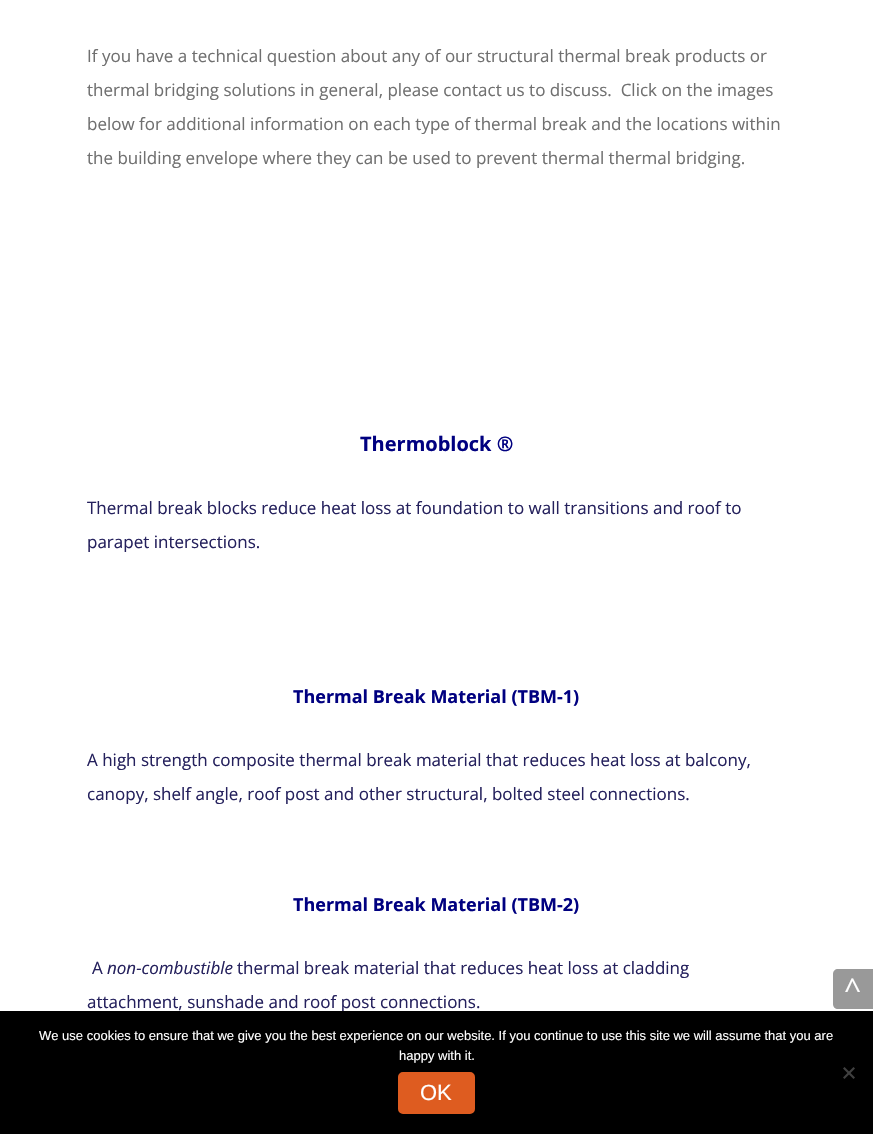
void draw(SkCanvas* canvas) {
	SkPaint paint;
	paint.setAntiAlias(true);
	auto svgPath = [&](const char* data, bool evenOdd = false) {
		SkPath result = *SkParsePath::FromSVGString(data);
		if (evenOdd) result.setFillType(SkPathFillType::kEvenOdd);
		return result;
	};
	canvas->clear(0xffffffff);
	SkFont f1(fontMgr->matchFamilyStyle("Open Sans", SkFontStyle::Normal()), 17);
	f1.setSubpixel(true);
	paint.setColor(0xff707070);
	canvas->drawString("If you have a technical question about any of our structural thermal break products or", 87, 62, f1, paint);
	canvas->drawString("thermal bridging solutions in general, please contact us to discuss.  Click on the images", 87, 96, f1, paint);
	canvas->drawString("below for additional information on each type of thermal break and the locations within", 87, 130, f1, paint);
	canvas->drawString("the building envelope where they can be used to prevent thermal thermal bridging.", 87, 164, f1, paint);
	SkFont f2(fontMgr->matchFamilyStyle("Open Sans", SkFontStyle::Bold()), 20);
	f2.setSubpixel(true);
	paint.setColor(0xff000080);
	canvas->drawString("Thermoblock ®", 360, 451, f2, paint);
	paint.setColor(0xff25215d);
	canvas->drawString("Thermal break blocks reduce heat loss at foundation to wall transitions and roof to", 87, 514, f1, paint);
	canvas->drawString("parapet intersections.", 87, 548, f1, paint);
	SkFont f3(fontMgr->matchFamilyStyle("Open Sans", SkFontStyle::Bold()), 18);
	f3.setSubpixel(true);
	paint.setColor(0xff000080);
	canvas->drawString("Thermal Break Material (TBM-1)", 293, 703, f3, paint);
	paint.setColor(0xff25215d);
	canvas->drawString("A high strength composite thermal break material that reduces heat loss at balcony,", 87, 766, f1, paint);
	canvas->drawString("canopy, shelf angle, roof post and other structural, bolted steel connections.", 87, 800, f1, paint);
	paint.setColor(0xff000080);
	canvas->drawString("Thermal Break Material (TBM-2)", 293, 911, f3, paint);
	paint.setColor(0xff25215d);
	canvas->drawString("A", 92, 974, f1, paint);
	SkFont f4(fontMgr->matchFamilyStyle("Open Sans", SkFontStyle::Italic()), 17);
	f4.setSubpixel(true);
	canvas->drawString("non-combustible", 107, 974, f4, paint);
	canvas->drawString("thermal break material that reduces heat loss at cladding", 237, 974, f1, paint);
	canvas->drawString("attachment, sunshade and roof post connections.", 87, 1008, f1, paint);
	paint.setColor(0xff999999);
	canvas->drawPath(svgPath("M838 969H873V1009H838C835 1009 833 1007 833 1004V974C833 971 835 969 838 969Z"), paint);
	SkFont f5(fontMgr->matchFamilyStyle("Open Sans", SkFontStyle::Normal()), 30);
	f5.setSubpixel(true);
	paint.setColor(0xffffffff);
	canvas->drawString("^", 844, 1000, f5, paint);
	paint.setColor(0xff000000);
	canvas->drawRect(SkRect::MakeXYWH(0, 1011, 873, 123), paint);
	SkFont f6(fontMgr->matchFamilyStyle("Liberation Sans", SkFontStyle::Normal()), 13);
	f6.setSubpixel(true);
	paint.setColor(0xffffffff);
	canvas->drawString("We use cookies to ensure that we give you the best experience on our website. If you continue to use this site we will assume that you are", 39, 1040, f6, paint);
	canvas->drawString("happy with it.", 399, 1060, f6, paint);
	paint.setColor(0xff404040);
	canvas->drawPath(svgPath("M853.5 1067L855 1068.5L844.5 1079L843 1077.5Z"), paint);
	canvas->drawPath(svgPath("M843 1068.5L844.5 1067L855 1077.5L853.5 1079Z"), paint);
	paint.setColor(0xffde5c20);
	canvas->drawRoundRect(SkRect::MakeXYWH(399, 1073, 75, 40), 4, 4, paint);
	paint.setStroke(true);
	paint.setStrokeWidth(2);
	canvas->drawRoundRect(SkRect::MakeXYWH(399, 1073, 75, 40), 4, 4, paint);
	SkFont f7(fontMgr->matchFamilyStyle("Liberation Sans", SkFontStyle::Normal()), 22);
	f7.setSubpixel(true);
	paint.setStroke(false);
	paint.setColor(0xffffffff);
	canvas->drawString("OK", 420, 1100, f7, paint);
}
